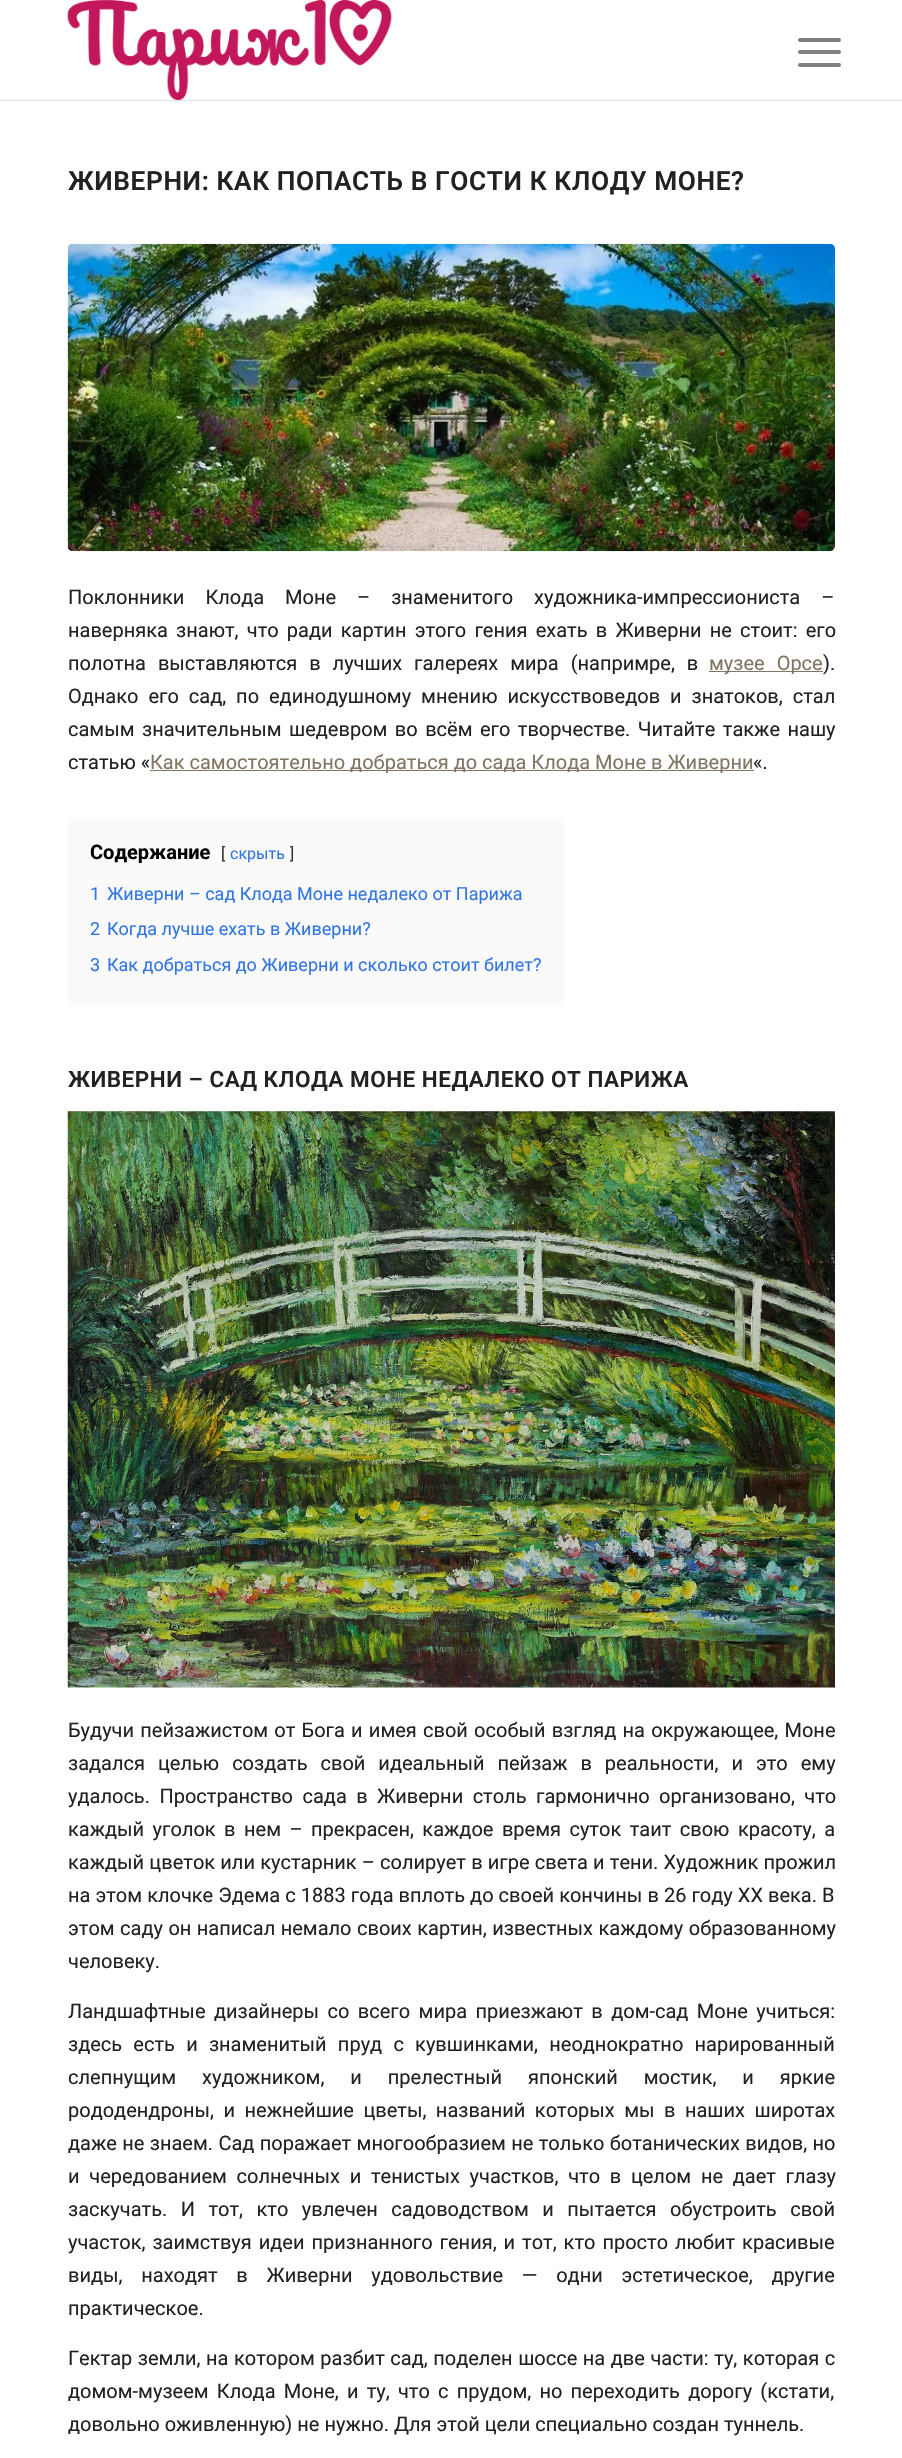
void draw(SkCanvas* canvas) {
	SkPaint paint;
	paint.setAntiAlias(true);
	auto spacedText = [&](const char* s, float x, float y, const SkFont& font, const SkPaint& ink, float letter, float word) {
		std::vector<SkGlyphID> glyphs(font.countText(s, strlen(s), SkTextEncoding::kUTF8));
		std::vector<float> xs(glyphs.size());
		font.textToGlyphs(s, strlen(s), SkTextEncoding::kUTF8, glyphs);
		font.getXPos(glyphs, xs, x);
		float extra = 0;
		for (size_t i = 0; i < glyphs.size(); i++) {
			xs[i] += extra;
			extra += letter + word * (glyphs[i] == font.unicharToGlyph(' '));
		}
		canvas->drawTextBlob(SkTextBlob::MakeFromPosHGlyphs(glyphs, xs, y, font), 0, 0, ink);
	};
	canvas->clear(0xffffffff);
	paint.setColor(0xffe1e1e1);
	canvas->drawRect(SkRect::MakeXYWH(0, 100, 902, 1), paint);
	canvas->drawImageRect(SkImages::DeferredFromEncodedData(SkData::MakeFromFileName("img1.png")), SkRect::MakeXYWH(67, 0, 325, 100), SkSamplingOptions());
	paint.setColor(0xff808080);
	canvas->drawRoundRect(SkRect::MakeXYWH(798, 50, 43, 4), 2, 2, paint);
	canvas->drawRoundRect(SkRect::MakeXYWH(798, 38, 43, 4), 2, 2, paint);
	canvas->drawRoundRect(SkRect::MakeXYWH(798, 63, 43, 4), 2, 2, paint);
	SkFont f1(fontMgr->matchFamilyStyle("Roboto", SkFontStyle(600, SkFontStyle::kNormal_Width, SkFontStyle::kUpright_Slant)), 26.25);
	f1.setSubpixel(true);
	paint.setColor(0xff222222);
	spacedText("ЖИВЕРНИ: КАК ПОПАСТЬ В ГОСТИ К КЛОДУ МОНЕ?", 68, 190, f1, paint, 0.6, 0);
	canvas->drawImageRect(SkImages::DeferredFromEncodedData(SkData::MakeFromFileName("img2.png")), SkRect::MakeXYWH(67, 243, 768, 309), SkSamplingOptions());
	SkFont f2(fontMgr->matchFamilyStyle("Roboto", SkFontStyle::Normal()), 20);
	f2.setSubpixel(true);
	spacedText("Поклонники Клода Моне – знаменитого художника-импрессиониста –", 68, 604, f2, paint, 0, 16);
	spacedText("наверняка знают, что ради картин этого гения ехать в Живерни не стоит: его", 68, 637, f2, paint, 0, 3.25);
	spacedText("полотна выставляются в лучших галереях мира (напримре, в", 68, 670, f2, paint, 0, 7);
	paint.setColor(0xff817563);
	canvas->drawRect(SkRect::MakeXYWH(709, 671, 114, 1), paint);
	spacedText("музее Орсе", 709, 670, f2, paint, 0, 7);
	paint.setColor(0xff222222);
	canvas->drawString(").", 823, 670, f2, paint);
	spacedText("Однако его сад, по единодушному мнению искусствоведов и знатоков, стал", 68, 703, f2, paint, 0, 5);
	spacedText("самым значительным шедевром во всём его творчестве. Читайте также нашу", 68, 736, f2, paint, 0, 2.5);
	canvas->drawString("статью «", 68, 769, f2, paint);
	paint.setColor(0xff817563);
	canvas->drawRect(SkRect::MakeXYWH(150, 770, 604, 1), paint);
	canvas->drawString("Как самостоятельно добраться до сада Клода Моне в Живерни", 150, 769, f2, paint);
	paint.setColor(0xff222222);
	canvas->drawString("«.", 753, 769, f2, paint);
	paint.setColor(0xfffafafa);
	canvas->drawRect(SkRect::MakeXYWH(68, 819, 496, 186), paint);
	SkFont f3(fontMgr->matchFamilyStyle("Roboto", SkFontStyle::Bold()), 20);
	f3.setSubpixel(true);
	paint.setColor(0xff000000);
	canvas->drawString("Содержание", 90, 859, f3, paint);
	SkFont f4(fontMgr->matchFamilyStyle("Roboto", SkFontStyle::Normal()), 16);
	f4.setSubpixel(true);
	paint.setColor(0xff333333);
	canvas->drawString("[", 221, 859, f4, paint);
	paint.setColor(0xff3175e4);
	canvas->drawString("скрыть", 230, 859, f4, paint);
	paint.setColor(0xff333333);
	canvas->drawString("]", 290, 859, f4, paint);
	SkFont f5(fontMgr->matchFamilyStyle("Roboto", SkFontStyle::Normal()), 18);
	f5.setSubpixel(true);
	paint.setColor(0xff3175e4);
	canvas->drawString("1", 90, 900, f5, paint);
	canvas->drawString("Живерни – сад Клода Моне недалеко от Парижа", 107, 900, f5, paint);
	canvas->drawString("2", 90, 935, f5, paint);
	canvas->drawString("Когда лучше ехать в Живерни?", 107, 935, f5, paint);
	canvas->drawString("3", 90, 971, f5, paint);
	canvas->drawString("Как добраться до Живерни и сколько стоит билет?", 107, 971, f5, paint);
	SkFont f6(fontMgr->matchFamilyStyle("Roboto", SkFontStyle(600, SkFontStyle::kNormal_Width, SkFontStyle::kUpright_Slant)), 22.5);
	f6.setSubpixel(true);
	paint.setColor(0xff222222);
	spacedText("ЖИВЕРНИ – САД КЛОДА МОНЕ НЕДАЛЕКО ОТ ПАРИЖА", 68, 1087, f6, paint, 0.5, 0);
	canvas->drawImageRect(SkImages::DeferredFromEncodedData(SkData::MakeFromFileName("img3.png")), SkRect::MakeXYWH(67, 1111, 768, 577), SkSamplingOptions());
	spacedText("Будучи пейзажистом от Бога и имея свой особый взгляд на окружающее, Моне", 68, 1737, f2, paint, 0, 1.25);
	spacedText("задался целью создать свой идеальный пейзаж в реальности, и это ему", 68, 1770, f2, paint, 0, 8);
	spacedText("удалось. Пространство сада в Живерни столь гармонично организовано, что", 68, 1803, f2, paint, 0, 4.5);
	spacedText("каждый уголок в нем – прекрасен, каждое время суток таит свою красоту, а", 68, 1836, f2, paint, 0, 3.5);
	spacedText("каждый цветок или кустарник – солирует в игре света и тени. Художник прожил", 68, 1869, f2, paint, 0, 0.25);
	spacedText("на этом клочке Эдема с 1883 года вплоть до своей кончины в 26 году ХХ века. В", 68, 1902, f2, paint, 0, 0.1);
	spacedText("этом саду он написал немало своих картин, известных каждому образованному", 68, 1935, f2, paint, 0, 0.5);
	canvas->drawString("человеку.", 68, 1968, f2, paint);
	spacedText("Ландшафтные дизайнеры со всего мира приезжают в дом-сад Моне учиться:", 68, 2018, f2, paint, 0, 3.5);
	spacedText("здесь есть и знаменитый пруд с кувшинками, неоднократно нарированный", 68, 2051, f2, paint, 0, 6.25);
	spacedText("слепнущим художником, и прелестный японский мостик, и яркие", 68, 2084, f2, paint, 0, 21);
	spacedText("рододендроны, и нежнейшие цветы, названий которых мы в наших широтах", 68, 2117, f2, paint, 0, 4.5);
	spacedText("даже не знаем. Сад поражает многообразием не только ботанических видов, но", 68, 2150, f2, paint, 0, 0.4);
	spacedText("и чередованием солнечных и тенистых участков, что в целом не дает глазу", 68, 2183, f2, paint, 0, 4.75);
	spacedText("заскучать. И тот, кто увлечен садоводством и пытается обустроить свой", 68, 2216, f2, paint, 0, 8.5);
	spacedText("участок, заимствуя идеи признанного гения, и тот, кто просто любит красивые", 68, 2249, f2, paint, 0, 2);
	spacedText("виды, находят в Живерни удовольствие — одни эстетическое, другие", 68, 2282, f2, paint, 0, 13.75);
	canvas->drawString("практическое.", 68, 2315, f2, paint);
	spacedText("Гектар земли, на котором разбит сад, поделен шоссе на две части: ту, которая с", 68, 2365, f2, paint, 0, 0.6);
	spacedText("домом-музеем Клода Моне, и ту, что с прудом, но переходить дорогу (кстати,", 68, 2398, f2, paint, 0, 3.25);
	canvas->drawString("довольно оживленную) не нужно. Для этой цели специально создан туннель.", 68, 2431, f2, paint);
}
